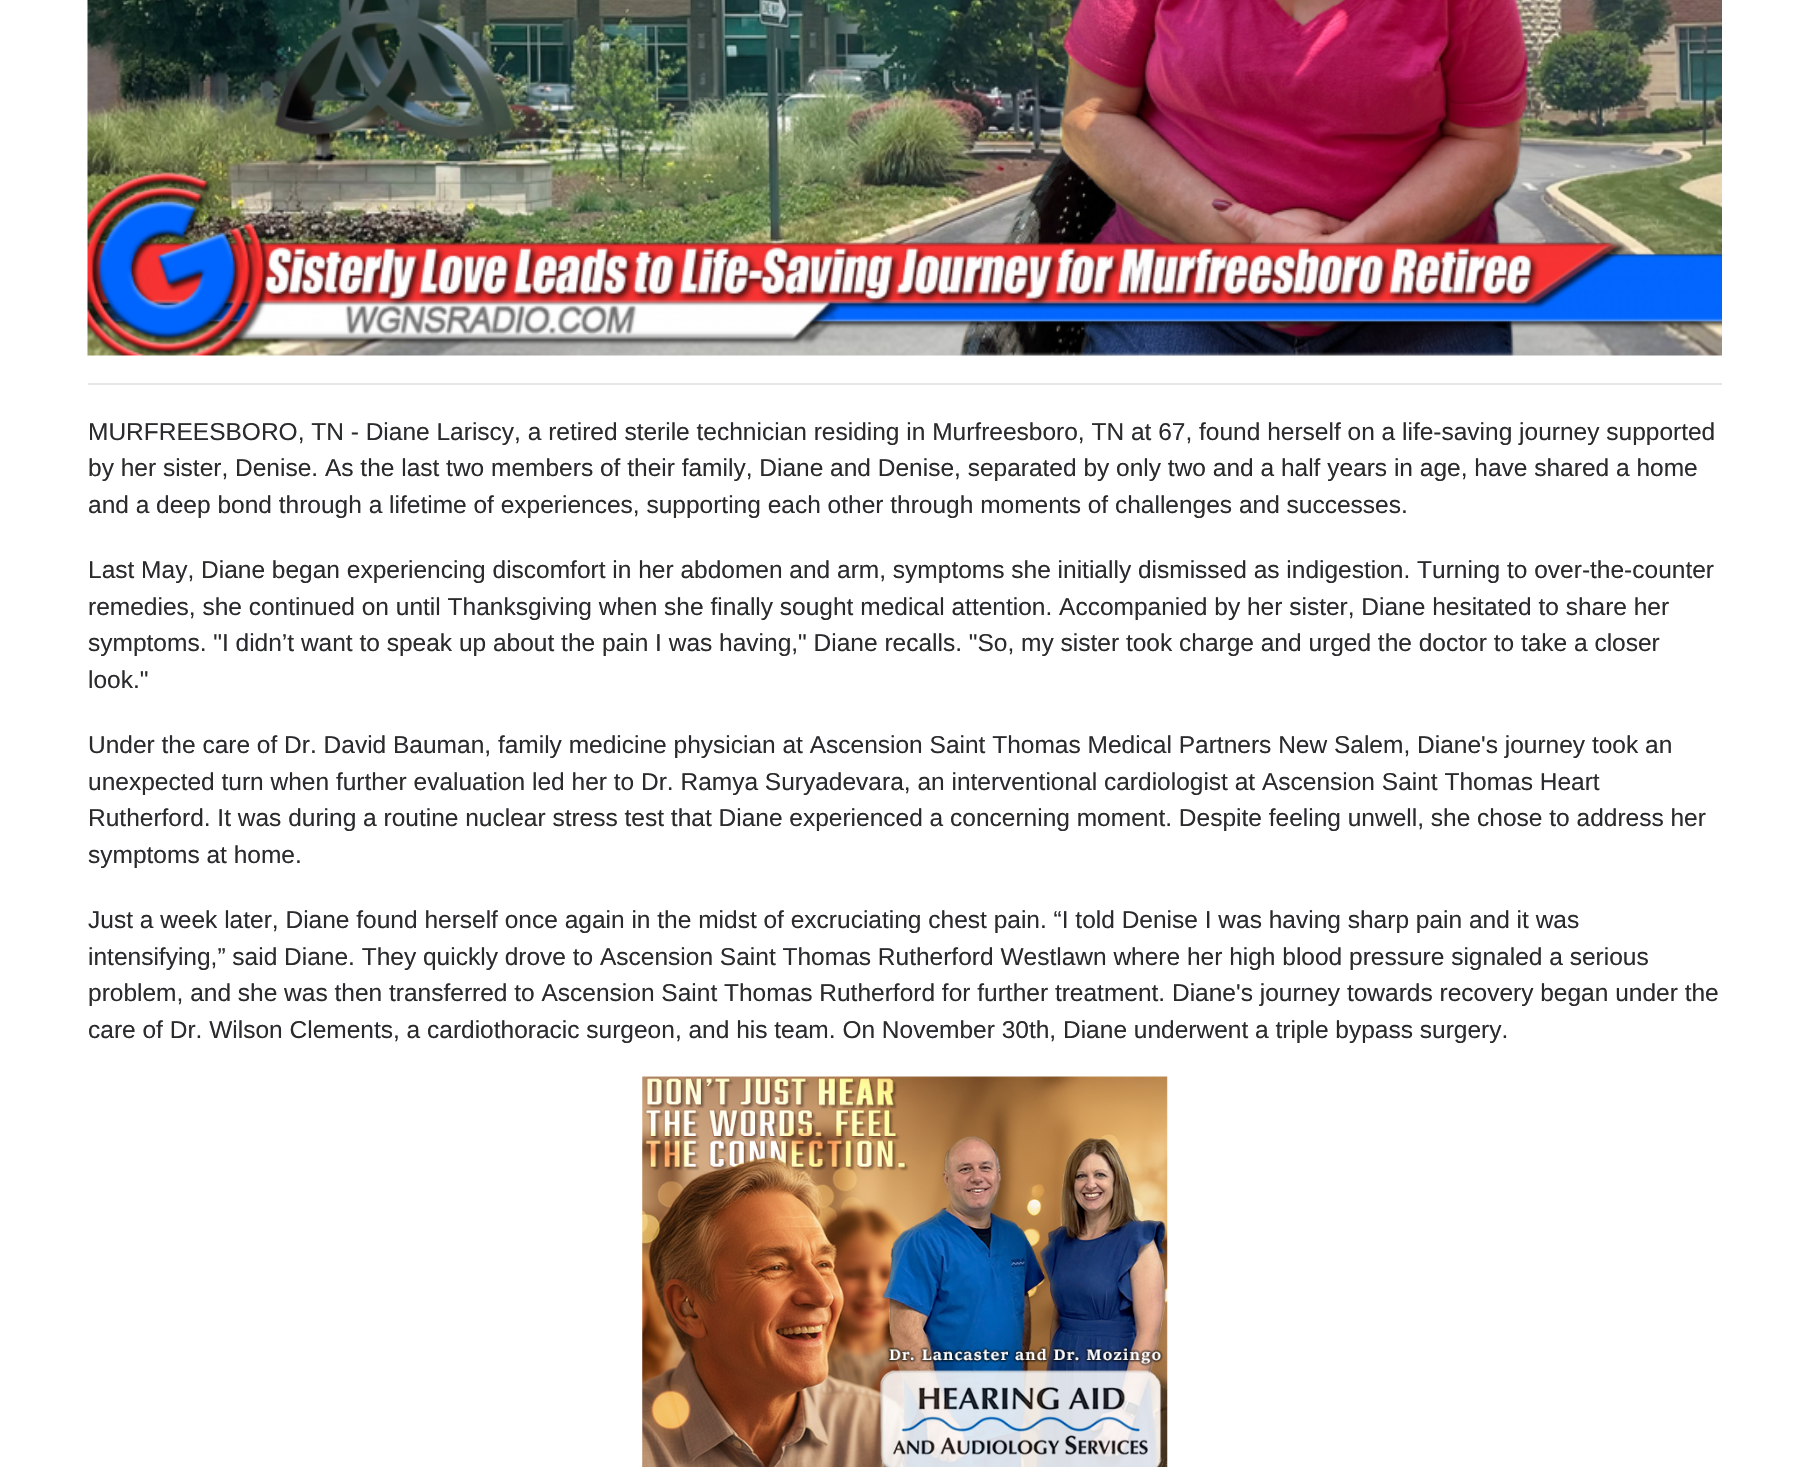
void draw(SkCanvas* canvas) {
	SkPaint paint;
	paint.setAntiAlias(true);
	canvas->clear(0xffffffff);
	canvas->drawImageRect(SkImages::DeferredFromEncodedData(SkData::MakeFromFileName("img1.png")), SkRect::MakeXYWH(87, 0, 1635, 356), SkSamplingOptions());
	paint.setColor(0xffe6e6e6);
	canvas->drawRect(SkRect::MakeXYWH(88, 383, 1634, 2), paint);
	SkFont f1(fontMgr->matchFamilyStyle("Liberation Sans", SkFontStyle::Normal()), 24.5);
	f1.setSubpixel(true);
	paint.setColor(0xff292b2c);
	canvas->drawString("MURFREESBORO, TN - Diane Lariscy, a retired sterile technician residing in Murfreesboro, TN at 67, found herself on a life-saving journey supported", 88, 440, f1, paint);
	canvas->drawString("by her sister, Denise. As the last two members of their family, Diane and Denise, separated by only two and a half years in age, have shared a home", 88, 476, f1, paint);
	canvas->drawString("and a deep bond through a lifetime of experiences, supporting each other through moments of challenges and successes.", 88, 513, f1, paint);
	canvas->drawString("Last May, Diane began experiencing discomfort in her abdomen and arm, symptoms she initially dismissed as indigestion. Turning to over-the-counter", 88, 578, f1, paint);
	canvas->drawString("remedies, she continued on until Thanksgiving when she finally sought medical attention. Accompanied by her sister, Diane hesitated to share her", 88, 615, f1, paint);
	canvas->drawString("symptoms. \"I didn’t want to speak up about the pain I was having,\" Diane recalls. \"So, my sister took charge and urged the doctor to take a closer", 88, 651, f1, paint);
	canvas->drawString("look.\"", 88, 688, f1, paint);
	canvas->drawString("Under the care of Dr. David Bauman, family medicine physician at Ascension Saint Thomas Medical Partners New Salem, Diane's journey took an", 88, 753, f1, paint);
	canvas->drawString("unexpected turn when further evaluation led her to Dr. Ramya Suryadevara, an interventional cardiologist at Ascension Saint Thomas Heart", 88, 790, f1, paint);
	canvas->drawString("Rutherford. It was during a routine nuclear stress test that Diane experienced a concerning moment. Despite feeling unwell, she chose to address her", 88, 826, f1, paint);
	canvas->drawString("symptoms at home.", 88, 863, f1, paint);
	canvas->drawString("Just a week later, Diane found herself once again in the midst of excruciating chest pain. “I told Denise I was having sharp pain and it was", 88, 928, f1, paint);
	canvas->drawString("intensifying,” said Diane. They quickly drove to Ascension Saint Thomas Rutherford Westlawn where her high blood pressure signaled a serious", 88, 965, f1, paint);
	canvas->drawString("problem, and she was then transferred to Ascension Saint Thomas Rutherford for further treatment. Diane's journey towards recovery began under the", 88, 1001, f1, paint);
	canvas->drawString("care of Dr. Wilson Clements, a cardiothoracic surgeon, and his team. On November 30th, Diane underwent a triple bypass surgery.", 88, 1038, f1, paint);
	canvas->drawImageRect(SkImages::DeferredFromEncodedData(SkData::MakeFromFileName("img2.png")), SkRect::MakeXYWH(642, 1076, 526, 391), SkSamplingOptions());
}
